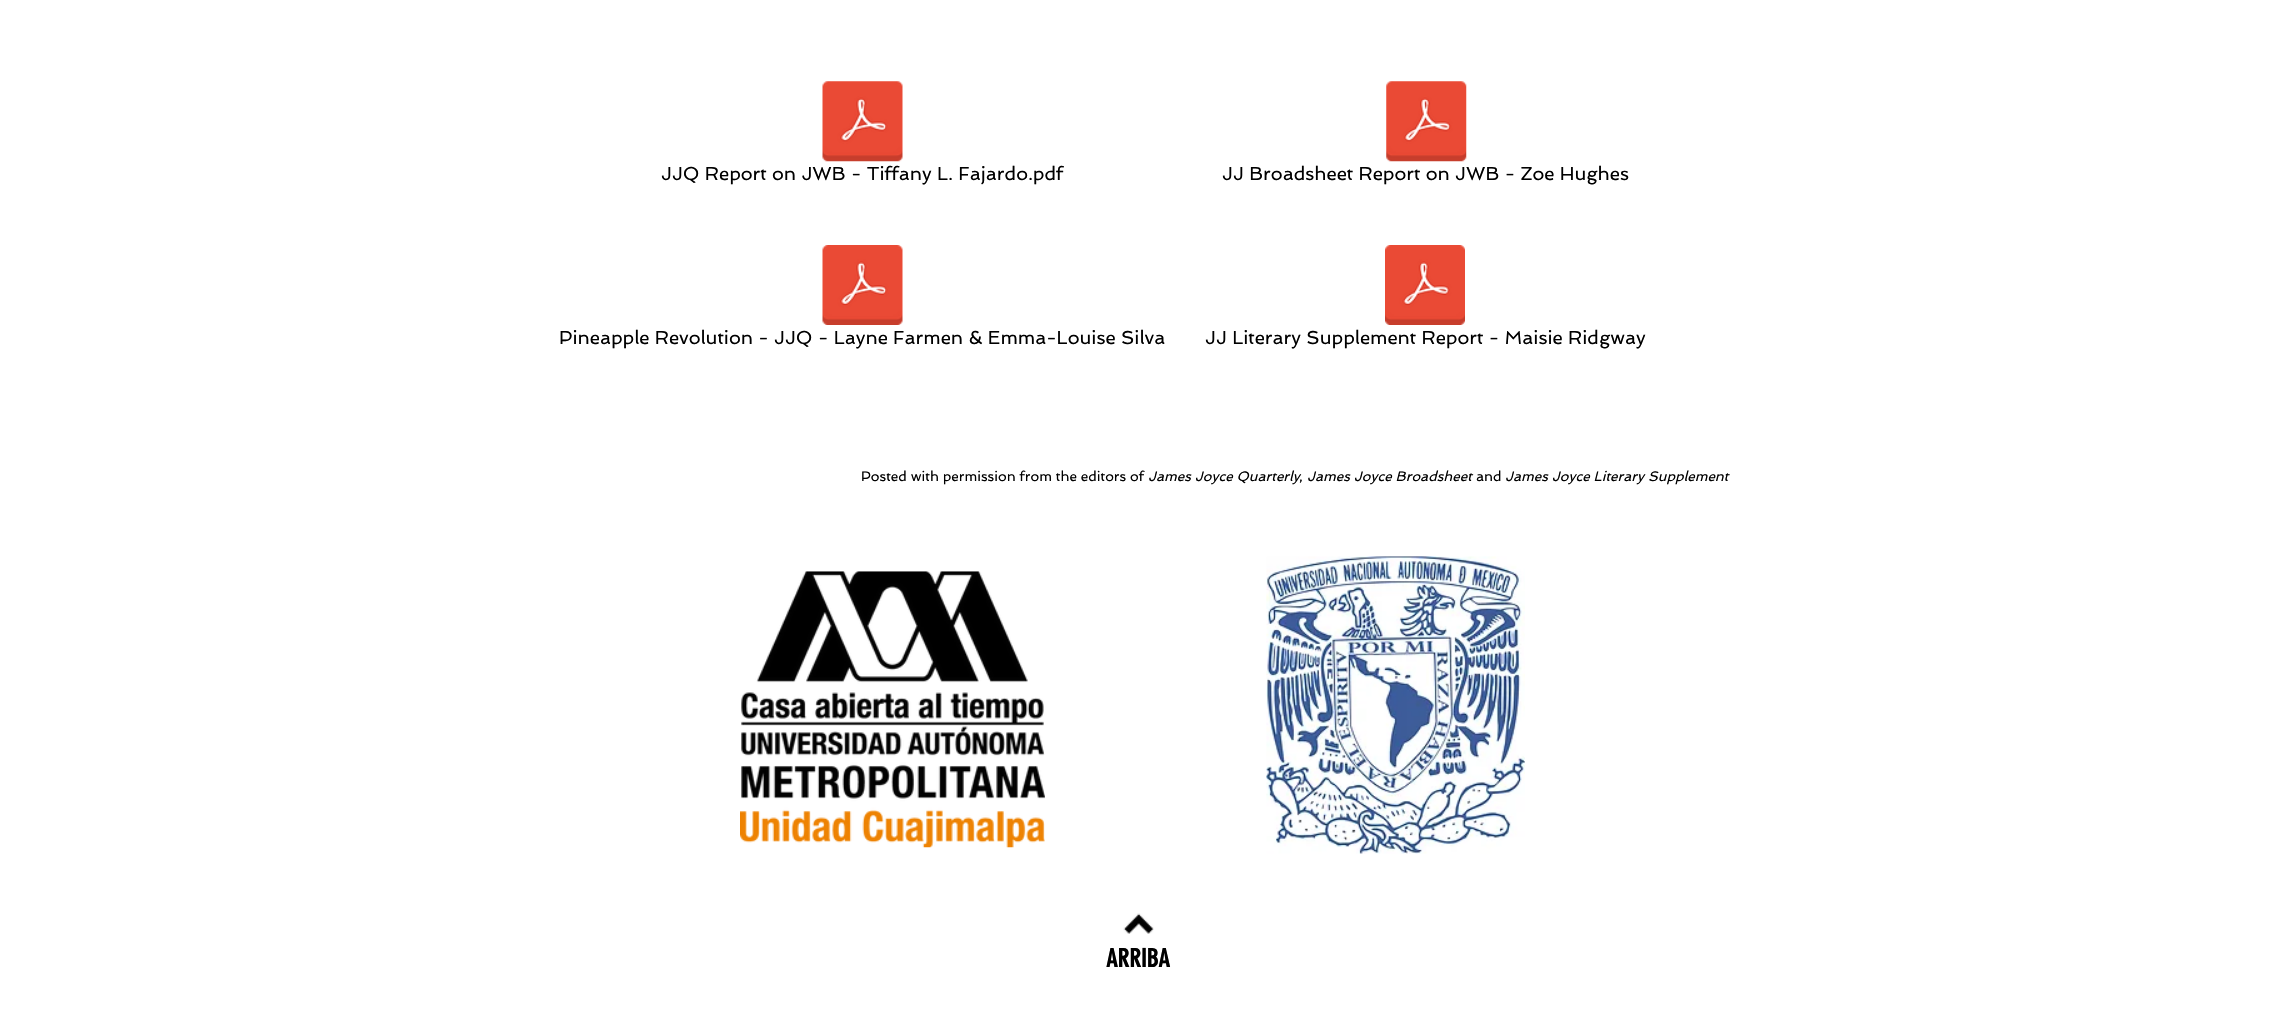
void draw(SkCanvas* canvas) {
	SkPaint paint;
	paint.setAntiAlias(true);
	canvas->clear(0xffffffff);
	canvas->drawImageRect(SkImages::DeferredFromEncodedData(SkData::MakeFromFileName("img1.png")), SkRect::MakeXYWH(822, 81, 81, 81), SkSamplingOptions());
	SkFont f1(fontMgr->matchFamilyStyle("Spinnaker", SkFontStyle::Normal()), 18.75);
	f1.setSubpixel(true);
	paint.setColor(0xff000000);
	canvas->drawString("JJQ Report on JWB - Tiffany L. Fajardo.pdf", 661, 180, f1, paint);
	canvas->drawImageRect(SkImages::DeferredFromEncodedData(SkData::MakeFromFileName("img2.png")), SkRect::MakeXYWH(1386, 81, 81, 81), SkSamplingOptions());
	canvas->drawString("JJ Broadsheet Report on JWB - Zoe Hughes", 1222, 180, f1, paint);
	canvas->drawImageRect(SkImages::DeferredFromEncodedData(SkData::MakeFromFileName("img3.png")), SkRect::MakeXYWH(822, 245, 81, 80), SkSamplingOptions());
	canvas->drawString("Pineapple Revolution - JJQ - Layne Farmen & Emma-Louise Silva", 559, 344, f1, paint);
	canvas->drawImageRect(SkImages::DeferredFromEncodedData(SkData::MakeFromFileName("img4.png")), SkRect::MakeXYWH(1385, 245, 80, 80), SkSamplingOptions());
	canvas->drawString("JJ Literary Supplement Report - Maisie Ridgway", 1205, 344, f1, paint);
	SkFont f2(fontMgr->matchFamilyStyle("Spinnaker", SkFontStyle::Normal()), 13.75);
	f2.setSubpixel(true);
	canvas->drawString("Posted with permission from the editors of", 861, 481, f2, paint);
	SkFont f3(fontMgr->matchFamilyStyle("Spinnaker", SkFontStyle::Italic()), 13.75);
	f3.setSubpixel(true);
	canvas->drawString("James Joyce Quarterly", 1148, 481, f3, paint);
	canvas->drawString(",", 1299, 481, f2, paint);
	canvas->drawString("James Joyce Broadsheet", 1307, 481, f3, paint);
	canvas->drawString("and", 1476, 481, f2, paint);
	canvas->drawString("James Joyce Literary Supplement", 1505, 481, f3, paint);
	canvas->drawImageRect(SkImages::DeferredFromEncodedData(SkData::MakeFromFileName("img5.png")), SkRect::MakeXYWH(740, 571, 305, 277), SkSamplingOptions());
	canvas->drawImageRect(SkImages::DeferredFromEncodedData(SkData::MakeFromFileName("img6.png")), SkRect::MakeXYWH(1266, 556, 259, 298), SkSamplingOptions());
	canvas->drawImageRect(SkImages::DeferredFromEncodedData(SkData::MakeFromFileName("img7.png")), SkRect::MakeXYWH(1123, 913, 31, 21), SkSamplingOptions());
	SkFont f4(fontMgr->matchFamilyStyle("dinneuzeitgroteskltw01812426", SkFontStyle::Bold()), 25);
	f4.setSubpixel(true);
	canvas->drawString("ARRIBA", 1106, 967, f4, paint);
}
